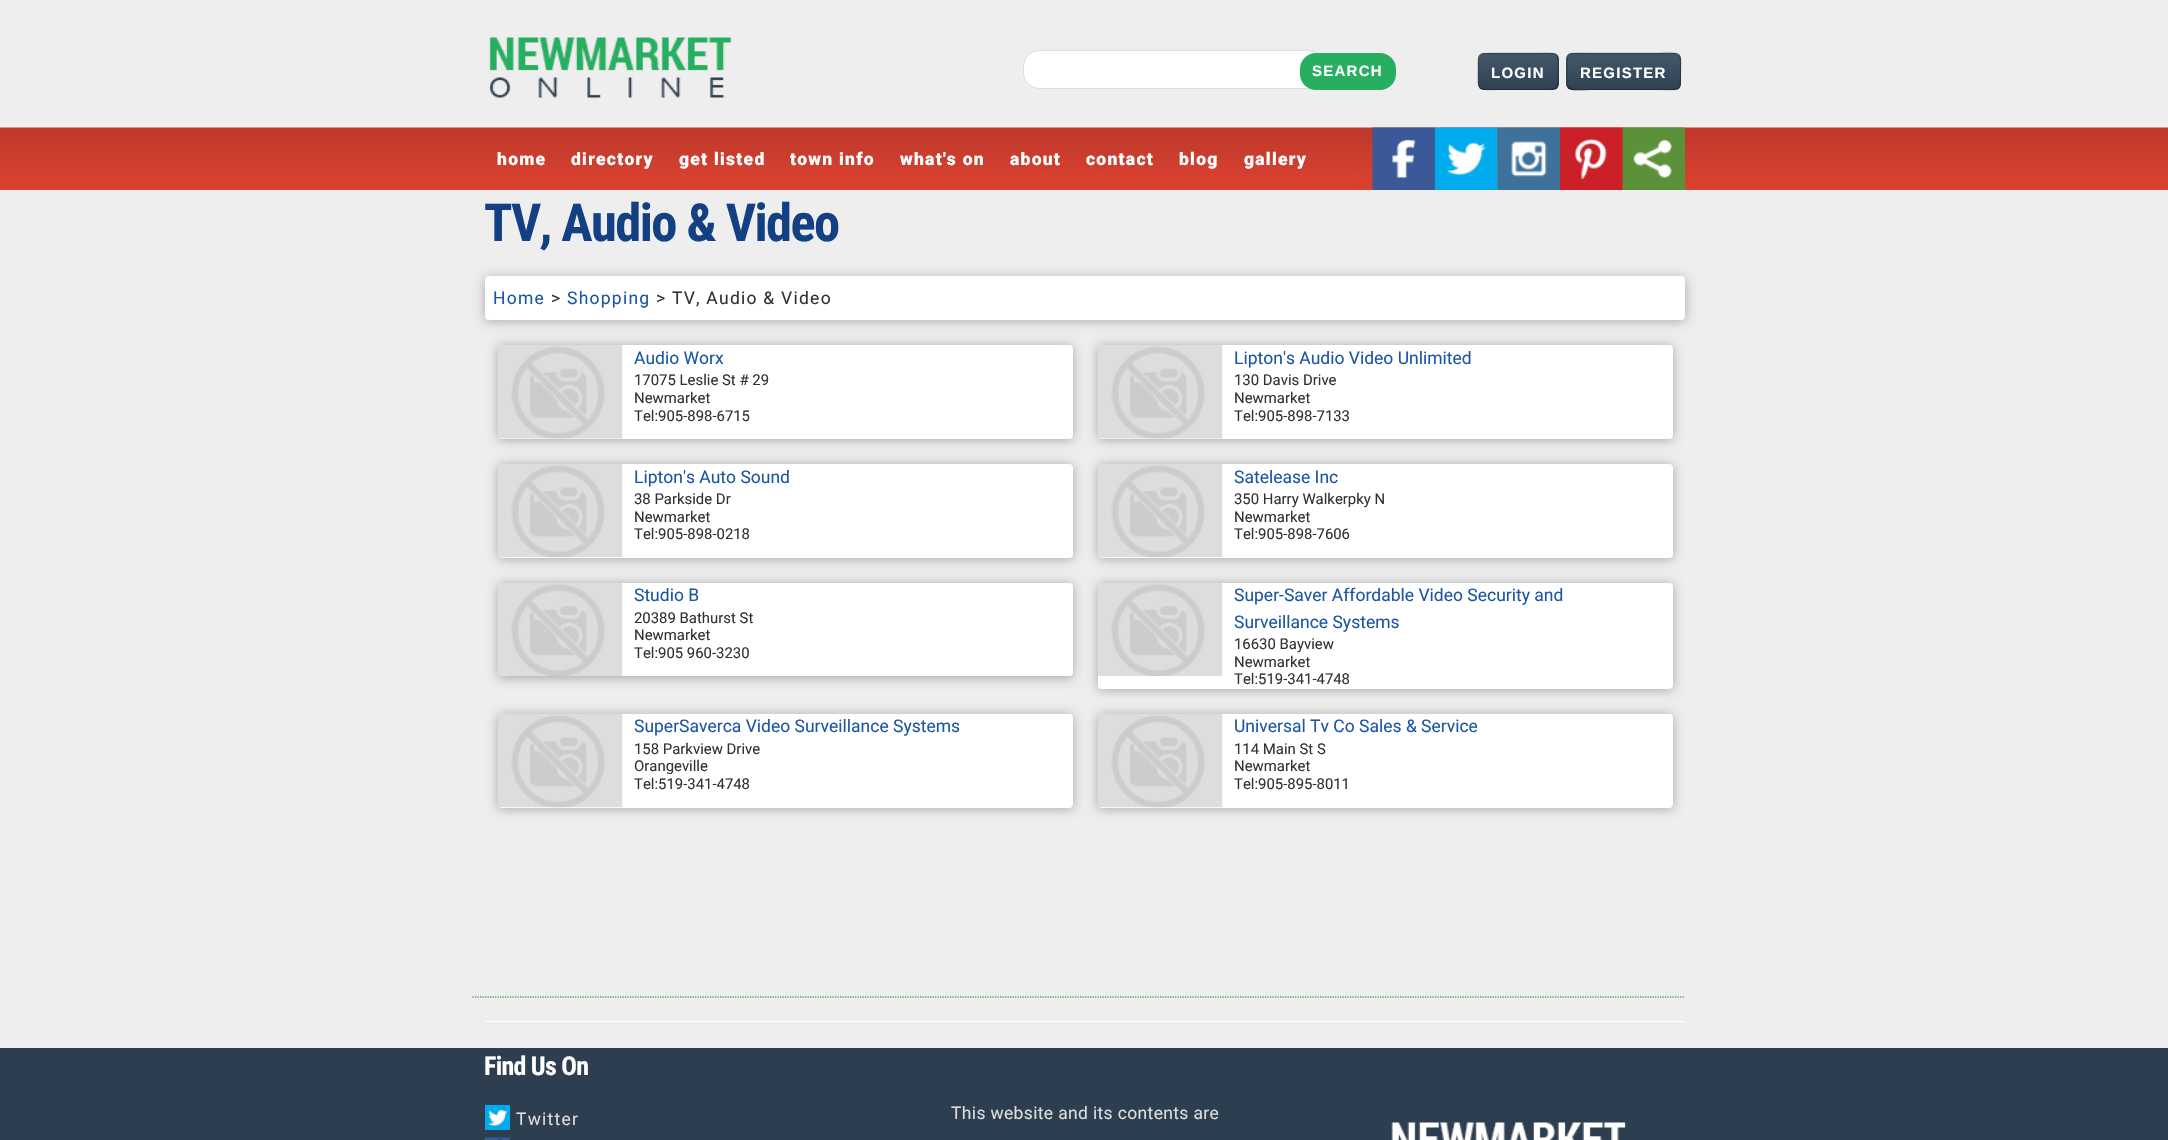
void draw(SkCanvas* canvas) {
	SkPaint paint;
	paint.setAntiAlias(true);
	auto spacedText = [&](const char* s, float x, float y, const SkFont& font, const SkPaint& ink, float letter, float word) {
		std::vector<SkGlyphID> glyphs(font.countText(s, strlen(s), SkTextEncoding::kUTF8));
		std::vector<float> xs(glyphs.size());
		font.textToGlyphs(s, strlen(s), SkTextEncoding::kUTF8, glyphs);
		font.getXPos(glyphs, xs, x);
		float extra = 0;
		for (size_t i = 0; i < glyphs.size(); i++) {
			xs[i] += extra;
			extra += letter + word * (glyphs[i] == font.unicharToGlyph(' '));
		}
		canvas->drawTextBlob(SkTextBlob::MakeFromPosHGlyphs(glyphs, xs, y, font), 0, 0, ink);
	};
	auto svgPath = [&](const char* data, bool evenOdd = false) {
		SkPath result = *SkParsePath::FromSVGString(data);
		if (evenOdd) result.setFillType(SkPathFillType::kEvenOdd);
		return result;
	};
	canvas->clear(0xffeeeeee);
	canvas->drawImageRect(SkImages::DeferredFromEncodedData(SkData::MakeFromFileName("img1.png")), SkRect::MakeXYWH(0, 127, 2168, 63), SkSamplingOptions());
	canvas->drawImageRect(SkImages::DeferredFromEncodedData(SkData::MakeFromFileName("img2.png")), SkRect::MakeXYWH(489, 37, 242, 61), SkSamplingOptions());
	paint.setColor(0xffffffff);
	canvas->drawRoundRect(SkRect::MakeXYWH(1023.5, 50.5, 301, 38), 15.5, 15.5, paint);
	paint.setStroke(true);
	paint.setStrokeWidth(1);
	paint.setColor(0xffdddddd);
	canvas->drawRoundRect(SkRect::MakeXYWH(1023.5, 50.5, 301, 38), 15.5, 15.5, paint);
	paint.setStroke(false);
	paint.setColor(0xff27ae60);
	canvas->drawRoundRect(SkRect::MakeXYWH(1300, 53, 96, 37), 16, 16, paint);
	SkFont f1(fontMgr->matchFamilyStyle("Liberation Sans", SkFontStyle::Bold()), 15);
	f1.setSubpixel(true);
	paint.setColor(0xffffffff);
	spacedText("SEARCH", 1312, 76, f1, paint, 1.25, 0);
	paint.setColor(0xff34495e);
	canvas->drawRoundRect(SkRect::MakeXYWH(1478, 53, 81, 37), 6, 6, paint);
	canvas->drawImageRect(SkImages::DeferredFromEncodedData(SkData::MakeFromFileName("img3.png")), SkRect::MakeXYWH(1477, 54, 82, 36), SkSamplingOptions());
	paint.setStroke(true);
	paint.setStrokeWidth(1.2);
	paint.setColor(0x4d000000);
	canvas->drawPath(svgPath("M1556.5 55C1559.5 58 1558 67.5 1558 71C1558 90.5 1560.5 89.5 1541 89.5H1495C1493 89.5 1483 91 1480 87.5"), paint);
	paint.setColor(0x33000000);
	canvas->drawPath(svgPath("M1480 87.5C1476.5 84.5 1478 75 1478 71C1478 52 1476 53 1495 53H1541C1543.5 53 1553 51.5 1556.5 55"), paint);
	paint.setStroke(false);
	paint.setColor(0xffffffff);
	spacedText("LOGIN", 1491, 78, f1, paint, 1.25, 0);
	paint.setColor(0xff34495e);
	canvas->drawRoundRect(SkRect::MakeXYWH(1566, 53, 115, 37), 6, 6, paint);
	canvas->drawImageRect(SkImages::DeferredFromEncodedData(SkData::MakeFromFileName("img4.png")), SkRect::MakeXYWH(1566, 54, 115, 36), SkSamplingOptions());
	paint.setStroke(true);
	paint.setColor(0x4d000000);
	canvas->drawPath(svgPath("M1679 55C1682 58 1680.5 67.5 1680.5 71C1680.5 93 1682 89.5 1658 89.5H1589.5C1588 89.5 1572.5 92 1568.5 87.5"), paint);
	paint.setColor(0x33000000);
	canvas->drawPath(svgPath("M1568.5 87.5C1565.5 84.5 1567 75 1567 71C1567 49.5 1565.5 53 1589.5 53H1658C1659.5 53 1675 50.5 1679 55"), paint);
	paint.setStroke(false);
	paint.setColor(0xffffffff);
	spacedText("REGISTER", 1580, 78, f1, paint, 1.25, 0);
	SkFont f2(fontMgr->matchFamilyStyle("Roboto", SkFontStyle(900, SkFontStyle::kNormal_Width, SkFontStyle::kUpright_Slant)), 17.5);
	f2.setSubpixel(true);
	spacedText("home", 497, 165, f2, paint, 1.25, 0);
	spacedText("directory", 571, 165, f2, paint, 1.25, 0);
	spacedText("get listed", 679, 165, f2, paint, 1.25, 0);
	spacedText("town info", 790, 165, f2, paint, 1.25, 0);
	spacedText("what's on", 900, 165, f2, paint, 1.25, 0);
	spacedText("about", 1010, 165, f2, paint, 1.25, 0);
	spacedText("contact", 1086, 165, f2, paint, 1.25, 0);
	spacedText("blog", 1179, 165, f2, paint, 1.25, 0);
	spacedText("gallery", 1244, 165, f2, paint, 1.25, 0);
	canvas->drawImageRect(SkImages::DeferredFromEncodedData(SkData::MakeFromFileName("img5.png")), SkRect::MakeXYWH(1372, 127, 63, 63), SkSamplingOptions());
	canvas->drawImageRect(SkImages::DeferredFromEncodedData(SkData::MakeFromFileName("img7.png")), SkRect::MakeXYWH(1497, 127, 63, 63), SkSamplingOptions());
	canvas->drawImageRect(SkImages::DeferredFromEncodedData(SkData::MakeFromFileName("img6.png")), SkRect::MakeXYWH(1435, 127, 63, 63), SkSamplingOptions());
	canvas->drawImageRect(SkImages::DeferredFromEncodedData(SkData::MakeFromFileName("img9.png")), SkRect::MakeXYWH(1622, 127, 63, 63), SkSamplingOptions());
	canvas->drawImageRect(SkImages::DeferredFromEncodedData(SkData::MakeFromFileName("img8.png")), SkRect::MakeXYWH(1560, 127, 63, 63), SkSamplingOptions());
	canvas->drawRect(SkRect::MakeXYWH(485, 1021, 1200, 1), paint);
	SkFont f3(fontMgr->matchFamilyStyle("Roboto Condensed", SkFontStyle::Bold()), 52.5);
	f3.setSubpixel(true);
	paint.setColor(0xff124082);
	spacedText("TV, Audio & Video", 484, 241, f3, paint, -1.6, 0);
	paint.setColor(0x4d000000);
	paint.setMaskFilter(SkMaskFilter::MakeBlur(kNormal_SkBlurStyle, 6));
	canvas->drawRoundRect(SkRect::MakeXYWH(485, 278, 1200, 43), 4, 4, paint);
	paint.setMaskFilter(nullptr);
	paint.setColor(0xffffffff);
	canvas->drawRoundRect(SkRect::MakeXYWH(485, 276, 1200, 44), 4, 4, paint);
	SkFont f4(fontMgr->matchFamilyStyle("Roboto", SkFontStyle::Normal()), 17.5);
	f4.setSubpixel(true);
	paint.setColor(0xff1c56a5);
	spacedText("Home", 493, 304, f4, paint, 1.25, 0);
	paint.setColor(0xff323232);
	spacedText(">", 551, 304, f4, paint, 1.25, 0);
	paint.setColor(0xff1c56a5);
	spacedText("Shopping", 567, 304, f4, paint, 1.25, 0);
	paint.setColor(0xff323232);
	spacedText("> TV, Audio & Video", 656, 304, f4, paint, 1.25, 0);
	paint.setColor(0x4d000000);
	paint.setMaskFilter(SkMaskFilter::MakeBlur(kNormal_SkBlurStyle, 6));
	canvas->drawRoundRect(SkRect::MakeXYWH(498, 346, 575, 94), 4, 4, paint);
	paint.setMaskFilter(nullptr);
	paint.setColor(0xffffffff);
	canvas->drawRoundRect(SkRect::MakeXYWH(498, 345, 575, 94), 4, 4, paint);
	canvas->drawImageRect(SkImages::DeferredFromEncodedData(SkData::MakeFromFileName("img10.png")), SkRect::MakeXYWH(498, 345, 125, 94), SkSamplingOptions());
	paint.setColor(0xff1c56a5);
	canvas->drawString("Audio Worx", 634, 364, f4, paint);
	SkFont f5(fontMgr->matchFamilyStyle("Roboto", SkFontStyle::Normal()), 14.9);
	f5.setSubpixel(true);
	paint.setColor(0xff323232);
	canvas->drawString("17075 Leslie St # 29", 634, 385, f5, paint);
	canvas->drawString("Newmarket", 634, 403, f5, paint);
	canvas->drawString("Tel:905-898-6715", 634, 421, f5, paint);
	paint.setColor(0x4d000000);
	paint.setMaskFilter(SkMaskFilter::MakeBlur(kNormal_SkBlurStyle, 6));
	canvas->drawRoundRect(SkRect::MakeXYWH(1098, 346, 575, 94), 4, 4, paint);
	paint.setMaskFilter(nullptr);
	paint.setColor(0xffffffff);
	canvas->drawRoundRect(SkRect::MakeXYWH(1098, 345, 575, 94), 4, 4, paint);
	canvas->drawImageRect(SkImages::DeferredFromEncodedData(SkData::MakeFromFileName("img11.png")), SkRect::MakeXYWH(1098, 345, 125, 94), SkSamplingOptions());
	paint.setColor(0xff1c56a5);
	canvas->drawString("Lipton's Audio Video Unlimited", 1234, 364, f4, paint);
	paint.setColor(0xff323232);
	canvas->drawString("130 Davis Drive", 1234, 385, f5, paint);
	canvas->drawString("Newmarket", 1234, 403, f5, paint);
	canvas->drawString("Tel:905-898-7133", 1234, 421, f5, paint);
	paint.setColor(0x4d000000);
	paint.setMaskFilter(SkMaskFilter::MakeBlur(kNormal_SkBlurStyle, 6));
	canvas->drawRoundRect(SkRect::MakeXYWH(498, 465, 575, 94), 4, 4, paint);
	paint.setMaskFilter(nullptr);
	paint.setColor(0xffffffff);
	canvas->drawRoundRect(SkRect::MakeXYWH(498, 464, 575, 94), 4, 4, paint);
	canvas->drawImageRect(SkImages::DeferredFromEncodedData(SkData::MakeFromFileName("img12.png")), SkRect::MakeXYWH(498, 464, 125, 94), SkSamplingOptions());
	paint.setColor(0xff1c56a5);
	canvas->drawString("Lipton's Auto Sound", 634, 483, f4, paint);
	paint.setColor(0xff323232);
	canvas->drawString("38 Parkside Dr", 634, 504, f5, paint);
	canvas->drawString("Newmarket", 634, 522, f5, paint);
	canvas->drawString("Tel:905-898-0218", 634, 539, f5, paint);
	paint.setColor(0x4d000000);
	paint.setMaskFilter(SkMaskFilter::MakeBlur(kNormal_SkBlurStyle, 6));
	canvas->drawRoundRect(SkRect::MakeXYWH(1098, 465, 575, 94), 4, 4, paint);
	paint.setMaskFilter(nullptr);
	paint.setColor(0xffffffff);
	canvas->drawRoundRect(SkRect::MakeXYWH(1098, 464, 575, 94), 4, 4, paint);
	canvas->drawImageRect(SkImages::DeferredFromEncodedData(SkData::MakeFromFileName("img13.png")), SkRect::MakeXYWH(1098, 464, 125, 94), SkSamplingOptions());
	paint.setColor(0xff1c56a5);
	canvas->drawString("Satelease Inc", 1234, 483, f4, paint);
	paint.setColor(0xff323232);
	canvas->drawString("350 Harry Walkerpky N", 1234, 504, f5, paint);
	canvas->drawString("Newmarket", 1234, 522, f5, paint);
	canvas->drawString("Tel:905-898-7606", 1234, 539, f5, paint);
	paint.setColor(0x4d000000);
	paint.setMaskFilter(SkMaskFilter::MakeBlur(kNormal_SkBlurStyle, 6));
	canvas->drawRoundRect(SkRect::MakeXYWH(498, 584, 575, 94), 4, 4, paint);
	paint.setMaskFilter(nullptr);
	paint.setColor(0xffffffff);
	canvas->drawRoundRect(SkRect::MakeXYWH(498, 583, 575, 93), 4, 4, paint);
	canvas->drawImageRect(SkImages::DeferredFromEncodedData(SkData::MakeFromFileName("img14.png")), SkRect::MakeXYWH(498, 583, 125, 93), SkSamplingOptions());
	paint.setColor(0xff1c56a5);
	canvas->drawString("Studio B", 634, 601, f4, paint);
	paint.setColor(0xff323232);
	canvas->drawString("20389 Bathurst St", 634, 623, f5, paint);
	canvas->drawString("Newmarket", 634, 640, f5, paint);
	canvas->drawString("Tel:905 960-3230", 634, 658, f5, paint);
	paint.setColor(0x4d000000);
	paint.setMaskFilter(SkMaskFilter::MakeBlur(kNormal_SkBlurStyle, 6));
	canvas->drawRoundRect(SkRect::MakeXYWH(1098, 584, 575, 106), 4, 4, paint);
	paint.setMaskFilter(nullptr);
	paint.setColor(0xffffffff);
	canvas->drawRoundRect(SkRect::MakeXYWH(1098, 583, 575, 106), 4, 4, paint);
	canvas->drawImageRect(SkImages::DeferredFromEncodedData(SkData::MakeFromFileName("img15.png")), SkRect::MakeXYWH(1098, 583, 125, 93), SkSamplingOptions());
	paint.setColor(0xff1c56a5);
	canvas->drawString("Super-Saver Affordable Video Security and", 1234, 601, f4, paint);
	canvas->drawString("Surveillance Systems", 1234, 628, f4, paint);
	paint.setColor(0xff323232);
	canvas->drawString("16630 Bayview", 1234, 649, f5, paint);
	canvas->drawString("Newmarket", 1234, 667, f5, paint);
	canvas->drawString("Tel:519-341-4748", 1234, 684, f5, paint);
	paint.setColor(0x4d000000);
	paint.setMaskFilter(SkMaskFilter::MakeBlur(kNormal_SkBlurStyle, 6));
	canvas->drawRoundRect(SkRect::MakeXYWH(498, 715, 575, 94), 4, 4, paint);
	paint.setMaskFilter(nullptr);
	paint.setColor(0xffffffff);
	canvas->drawRoundRect(SkRect::MakeXYWH(498, 714, 575, 94), 4, 4, paint);
	canvas->drawImageRect(SkImages::DeferredFromEncodedData(SkData::MakeFromFileName("img12.png")), SkRect::MakeXYWH(498, 714, 125, 94), SkSamplingOptions());
	paint.setColor(0xff1c56a5);
	canvas->drawString("SuperSaverca Video Surveillance Systems", 634, 732, f4, paint);
	paint.setColor(0xff323232);
	canvas->drawString("158 Parkview Drive", 634, 754, f5, paint);
	canvas->drawString("Orangeville", 634, 771, f5, paint);
	canvas->drawString("Tel:519-341-4748", 634, 789, f5, paint);
	paint.setColor(0x4d000000);
	paint.setMaskFilter(SkMaskFilter::MakeBlur(kNormal_SkBlurStyle, 6));
	canvas->drawRoundRect(SkRect::MakeXYWH(1098, 715, 575, 94), 4, 4, paint);
	paint.setMaskFilter(nullptr);
	paint.setColor(0xffffffff);
	canvas->drawRoundRect(SkRect::MakeXYWH(1098, 714, 575, 94), 4, 4, paint);
	canvas->drawImageRect(SkImages::DeferredFromEncodedData(SkData::MakeFromFileName("img13.png")), SkRect::MakeXYWH(1098, 714, 125, 94), SkSamplingOptions());
	paint.setColor(0xff1c56a5);
	canvas->drawString("Universal Tv Co Sales & Service", 1234, 732, f4, paint);
	paint.setColor(0xff323232);
	canvas->drawString("114 Main St S", 1234, 754, f5, paint);
	canvas->drawString("Newmarket", 1234, 771, f5, paint);
	canvas->drawString("Tel:905-895-8011", 1234, 789, f5, paint);
	paint.setStroke(true);
	paint.setColor(0xff008000);
	paint.setPathEffect(SkDashPathEffect::Make({{1.25f, 1.25f}}, 0));
	canvas->drawPath(svgPath("M472.5 997H1685"), paint);
	paint.setPathEffect(nullptr);
	paint.setStroke(false);
	paint.setColor(0xff2c3e50);
	canvas->drawRect(SkRect::MakeXYWH(0, 1048, 2168, 92), paint);
	SkFont f6(fontMgr->matchFamilyStyle("Roboto Condensed", SkFontStyle::Bold()), 26);
	f6.setSubpixel(true);
	paint.setColor(0xffffffff);
	spacedText("Find Us On", 484, 1075, f6, paint, -0.75, 0);
	canvas->drawImageRect(SkImages::DeferredFromEncodedData(SkData::MakeFromFileName("img16.png")), SkRect::MakeXYWH(485, 1105, 25, 25), SkSamplingOptions());
	paint.setColor(0xffdddddd);
	spacedText("Twitter", 516, 1125, f4, paint, 1.25, 0);
	canvas->drawImageRect(SkImages::DeferredFromEncodedData(SkData::MakeFromFileName("img17.png")), SkRect::MakeXYWH(485, 1137, 25, 3), SkSamplingOptions());
	spacedText("This website and its contents are", 951, 1119, f4, paint, 0.35, 0);
	canvas->drawImageRect(SkImages::DeferredFromEncodedData(SkData::MakeFromFileName("img18.png")), SkRect::MakeXYWH(1391, 1122, 235, 18), SkSamplingOptions());
}
